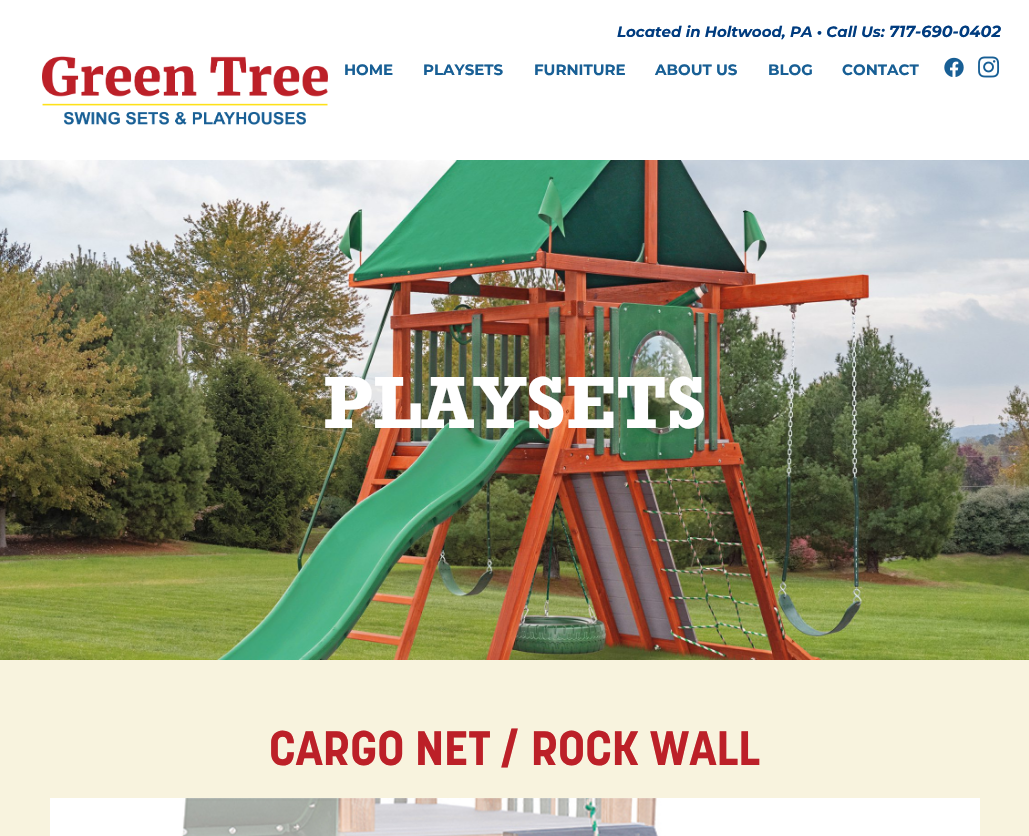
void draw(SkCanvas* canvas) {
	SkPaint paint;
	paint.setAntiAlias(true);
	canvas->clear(0xfff8f3de);
	paint.setColor(0xffffffff);
	canvas->drawRect(SkRect::MakeXYWH(0, 0, 1029, 160), paint);
	SkFont f1(fontMgr->matchFamilyStyle("Montserrat", SkFontStyle::BoldItalic()), 15);
	f1.setSubpixel(true);
	paint.setColor(0xff003c7f);
	canvas->drawString("Located in Holtwood, PA • Call Us:", 617, 37, f1, paint);
	SkFont f2(fontMgr->matchFamilyStyle("Montserrat", SkFontStyle::BoldItalic()), 16);
	f2.setSubpixel(true);
	canvas->drawString("717-690-0402", 889, 37, f2, paint);
	SkFont f3(fontMgr->matchFamilyStyle("Montserrat", SkFontStyle::Bold()), 15);
	f3.setSubpixel(true);
	paint.setColor(0xff185f95);
	canvas->drawString("HOME", 344, 75, f3, paint);
	canvas->drawString("PLAYSETS", 423, 75, f3, paint);
	canvas->drawString("FURNITURE", 534, 75, f3, paint);
	canvas->drawString("ABOUT US", 655, 75, f3, paint);
	canvas->drawString("BLOG", 768, 75, f3, paint);
	canvas->drawString("CONTACT", 842, 75, f3, paint);
	canvas->drawImageRect(SkImages::DeferredFromEncodedData(SkData::MakeFromFileName("img1.png")), SkRect::MakeXYWH(944, 57, 20, 20), SkSamplingOptions());
	canvas->drawImageRect(SkImages::DeferredFromEncodedData(SkData::MakeFromFileName("img2.png")), SkRect::MakeXYWH(978, 56, 22, 22), SkSamplingOptions());
	canvas->drawImageRect(SkImages::DeferredFromEncodedData(SkData::MakeFromFileName("img3.png")), SkRect::MakeXYWH(42, 56, 286, 69), SkSamplingOptions());
	canvas->drawImageRect(SkImages::DeferredFromEncodedData(SkData::MakeFromFileName("img4.png")), SkRect::MakeXYWH(0, 160, 1029, 500), SkSamplingOptions());
	SkFont f4(fontMgr->matchFamilyStyle("Rockwell", SkFontStyle::Bold()), 75);
	f4.setSubpixel(true);
	paint.setColor(0xffffffff);
	canvas->drawString("PLAYSETS", 323, 428, f4, paint);
	SkFont f5(fontMgr->matchFamilyStyle("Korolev", SkFontStyle::Bold()), 48);
	f5.setSubpixel(true);
	paint.setColor(0xffbc2028);
	canvas->drawString("CARGO NET / ROCK WALL", 269, 765, f5, paint);
	canvas->drawImageRect(SkImages::DeferredFromEncodedData(SkData::MakeFromFileName("img5.png")), SkRect::MakeXYWH(50, 798, 930, 38), SkSamplingOptions());
}
